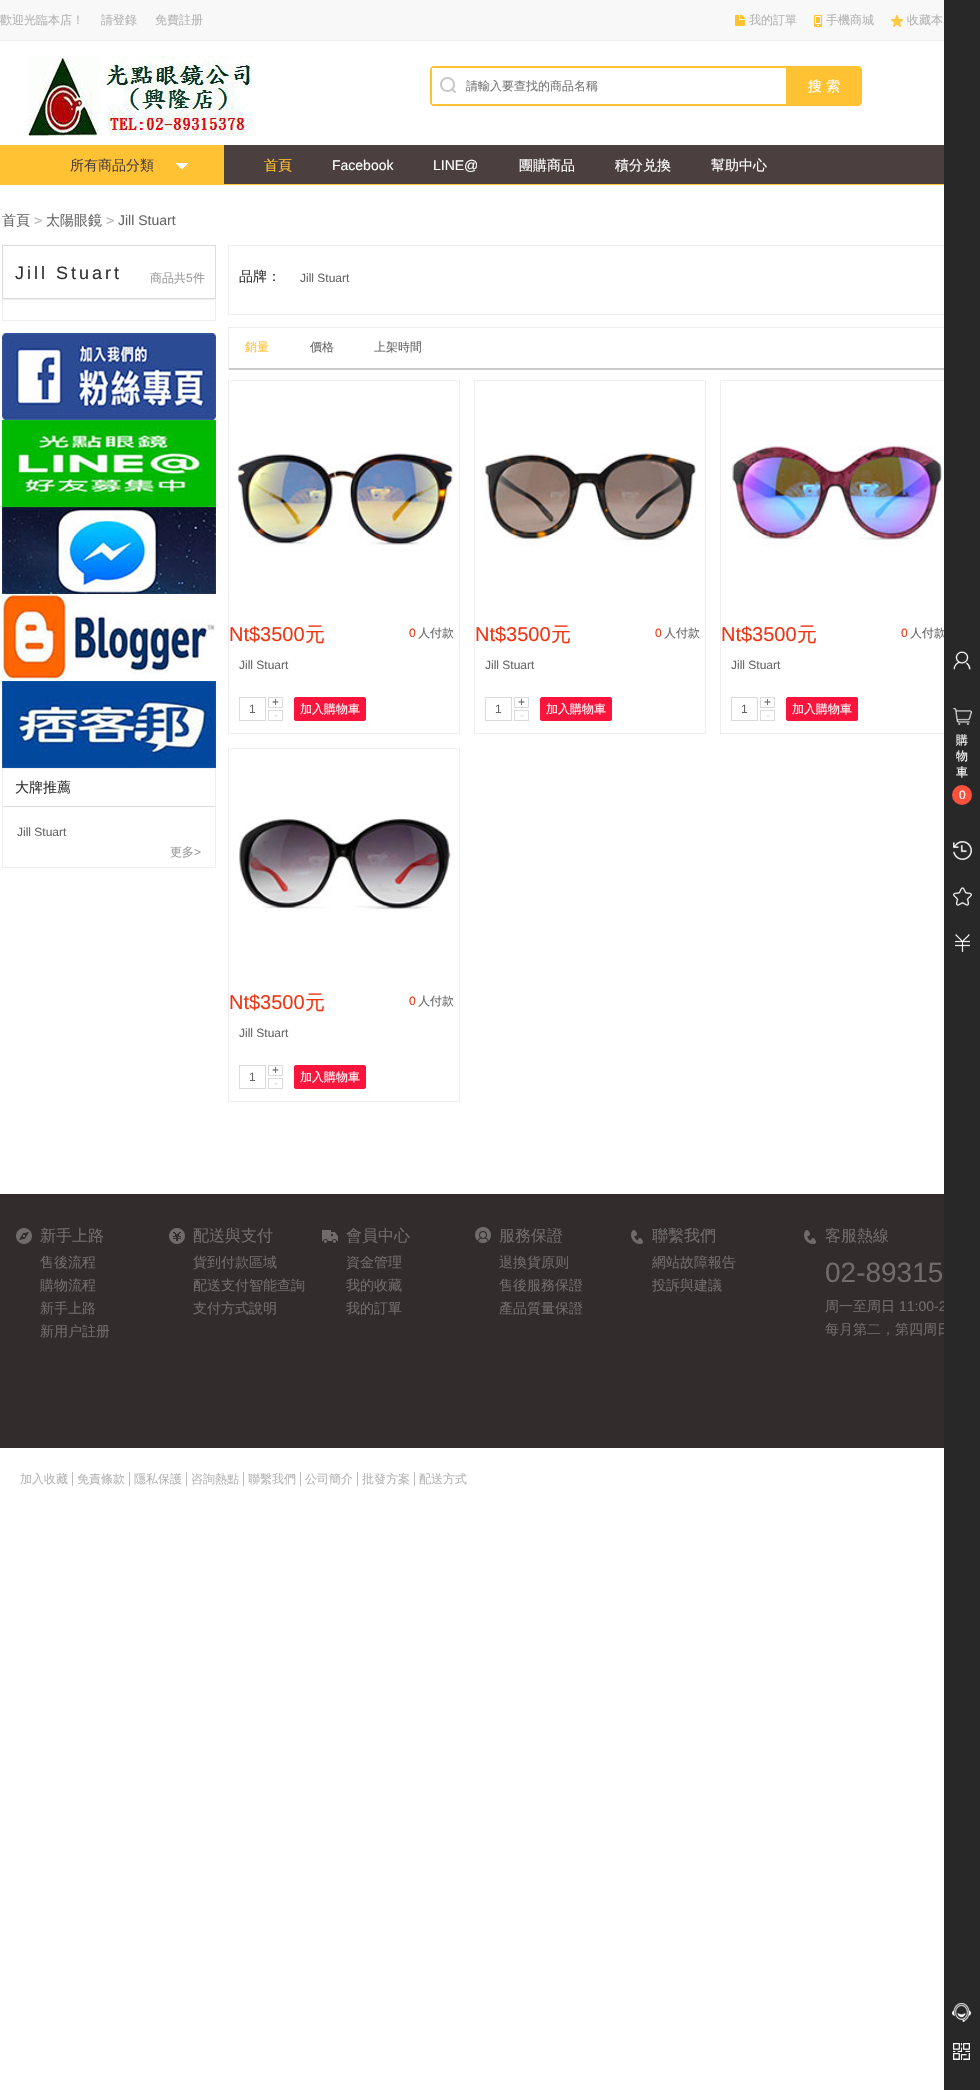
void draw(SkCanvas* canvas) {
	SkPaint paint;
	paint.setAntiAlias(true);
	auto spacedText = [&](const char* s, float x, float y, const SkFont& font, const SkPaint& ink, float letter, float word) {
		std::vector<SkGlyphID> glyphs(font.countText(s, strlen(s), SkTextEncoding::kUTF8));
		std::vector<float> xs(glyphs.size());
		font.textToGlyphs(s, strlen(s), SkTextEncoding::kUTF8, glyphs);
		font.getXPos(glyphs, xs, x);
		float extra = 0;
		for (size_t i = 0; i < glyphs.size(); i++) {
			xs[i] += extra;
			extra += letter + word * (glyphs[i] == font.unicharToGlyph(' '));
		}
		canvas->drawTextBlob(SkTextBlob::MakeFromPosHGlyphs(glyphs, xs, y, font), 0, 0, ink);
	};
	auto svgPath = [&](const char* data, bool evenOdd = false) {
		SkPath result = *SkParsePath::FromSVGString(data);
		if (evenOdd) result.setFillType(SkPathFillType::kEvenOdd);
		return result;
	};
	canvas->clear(0xffffffff);
	paint.setColor(0xfff8f8f8);
	canvas->drawRect(SkRect::MakeXYWH(0, 0, 944, 40), paint);
	paint.setColor(0xffeeeeee);
	canvas->drawRect(SkRect::MakeXYWH(0, 40, 944, 1), paint);
	SkFont f1(fontMgr->matchFamilyStyle("WenQuanYi Zen Hei", SkFontStyle(500, SkFontStyle::kNormal_Width, SkFontStyle::kUpright_Slant)), 12);
	f1.setSubpixel(true);
	paint.setColor(0xffb4b4b4);
	canvas->drawString("歡迎光臨本店！", 0, 24, f1, paint);
	canvas->drawString("請登錄", 101, 24, f1, paint);
	canvas->drawString("免費註册", 155, 24, f1, paint);
	canvas->drawImageRect(SkImages::DeferredFromEncodedData(SkData::MakeFromFileName("img1.png")), SkRect::MakeXYWH(735, 15, 10, 11), SkSamplingOptions());
	canvas->drawString("我的訂單", 749, 24, f1, paint);
	canvas->drawImageRect(SkImages::DeferredFromEncodedData(SkData::MakeFromFileName("img2.png")), SkRect::MakeXYWH(814, 15, 8, 12), SkSamplingOptions());
	canvas->drawString("手機商城", 826, 24, f1, paint);
	canvas->drawImageRect(SkImages::DeferredFromEncodedData(SkData::MakeFromFileName("img3.png")), SkRect::MakeXYWH(891, 15, 12, 12), SkSamplingOptions());
	canvas->drawString("收藏本", 907, 24, f1, paint);
	canvas->drawImageRect(SkImages::DeferredFromEncodedData(SkData::MakeFromFileName("img4.png")), SkRect::MakeXYWH(28, 56, 224, 80), SkSamplingOptions());
	canvas->drawImageRect(SkImages::DeferredFromEncodedData(SkData::MakeFromFileName("img5.png")), SkRect::MakeXYWH(440, 77, 16, 16), SkSamplingOptions());
	canvas->save();
	canvas->clipPath(svgPath("M434 66H858C860 66 862 68 862 70V102C862 104 860 106 858 106H434C432 106 430 104 430 102V70C430 68 432 66 434 66Z"), true);
	paint.setColor(0xffffc232);
	canvas->drawRect(SkRect::MakeXYWH(430, 66, 36, 2), paint);
	canvas->drawRect(SkRect::MakeXYWH(430, 104, 36, 2), paint);
	canvas->drawRect(SkRect::MakeXYWH(430, 66, 2, 40), paint);
	canvas->restore();
	canvas->drawRect(SkRect::MakeXYWH(466, 66, 320, 2), paint);
	canvas->drawRect(SkRect::MakeXYWH(466, 104, 320, 2), paint);
	paint.setColor(0xff757575);
	canvas->drawString("請輸入要查找的商品名稱", 466, 90, f1, paint);
	paint.setColor(0xffffc232);
	canvas->drawPath(svgPath("M786 66H858C860 66 862 68 862 70V102C862 104 860 106 858 106H786Z"), paint);
	SkFont f2(fontMgr->matchFamilyStyle("WenQuanYi Zen Hei", SkFontStyle(500, SkFontStyle::kNormal_Width, SkFontStyle::kUpright_Slant)), 14);
	f2.setSubpixel(true);
	paint.setColor(0xffffffff);
	canvas->drawString("搜 索", 808, 91, f2, paint);
	paint.setColor(0xff4c3f3f);
	canvas->drawRect(SkRect::MakeXYWH(224, 145, 720, 39), paint);
	paint.setColor(0xffffc232);
	canvas->drawRect(SkRect::MakeXYWH(224, 184, 720, 1), paint);
	canvas->drawRect(SkRect::MakeXYWH(0, 145, 224, 40), paint);
	paint.setColor(0xff4c3f3f);
	canvas->drawString("所有商品分類", 70, 170, f2, paint);
	canvas->drawImageRect(SkImages::DeferredFromEncodedData(SkData::MakeFromFileName("img6.png")), SkRect::MakeXYWH(176, 163, 12, 6), SkSamplingOptions());
	paint.setColor(0xffffc232);
	canvas->drawString("首頁", 264, 170, f2, paint);
	SkFont f3(fontMgr->matchFamilyStyle("Liberation Sans", SkFontStyle::Normal()), 14);
	f3.setSubpixel(true);
	paint.setColor(0xffffffff);
	canvas->drawString("Facebook", 332, 170, f3, paint);
	canvas->drawString("LINE@", 433, 170, f3, paint);
	canvas->drawString("團購商品", 519, 170, f2, paint);
	canvas->drawString("積分兑換", 615, 170, f2, paint);
	canvas->drawString("幫助中心", 711, 170, f2, paint);
	paint.setColor(0xff666666);
	canvas->drawString("首頁", 2, 225, f2, paint);
	SkFont f4(fontMgr->matchFamilyStyle("DejaVu Sans Mono", SkFontStyle::Normal()), 14);
	f4.setSubpixel(true);
	paint.setColor(0xffbbbbbb);
	canvas->drawString(">", 34, 225, f4, paint);
	paint.setColor(0xff666666);
	canvas->drawString("太陽眼鏡", 46, 225, f2, paint);
	paint.setColor(0xffbbbbbb);
	canvas->drawString(">", 106, 225, f4, paint);
	paint.setColor(0xff666666);
	canvas->drawString("Jill Stuart", 118, 225, f3, paint);
	paint.setStroke(true);
	paint.setStrokeWidth(1);
	paint.setColor(0xffdddddd);
	canvas->drawRect(SkRect::MakeXYWH(2.5, 245.5, 213, 53), paint);
	SkFont f5(fontMgr->matchFamilyStyle("Liberation Sans", SkFontStyle::Normal()), 18);
	f5.setSubpixel(true);
	paint.setStroke(false);
	paint.setColor(0xff333333);
	spacedText("Jill Stuart", 15, 279, f5, paint, 3, 0);
	paint.setColor(0xff999999);
	canvas->drawString("商品共", 150, 282, f1, paint);
	SkFont f6(fontMgr->matchFamilyStyle("Liberation Sans", SkFontStyle::Normal()), 12);
	f6.setSubpixel(true);
	canvas->drawString("5", 186, 282, f6, paint);
	canvas->drawString("件", 193, 282, f1, paint);
	paint.setStroke(true);
	paint.setColor(0xffeeeeee);
	canvas->drawRect(SkRect::MakeXYWH(2.5, 299.5, 213, 21), paint);
	canvas->drawImageRect(SkImages::DeferredFromEncodedData(SkData::MakeFromFileName("img7.png")), SkRect::MakeXYWH(2, 333, 214, 87), SkSamplingOptions());
	canvas->drawImageRect(SkImages::DeferredFromEncodedData(SkData::MakeFromFileName("img8.png")), SkRect::MakeXYWH(2, 420, 214, 87), SkSamplingOptions());
	canvas->drawImageRect(SkImages::DeferredFromEncodedData(SkData::MakeFromFileName("img9.png")), SkRect::MakeXYWH(2, 507, 214, 87), SkSamplingOptions());
	canvas->drawImageRect(SkImages::DeferredFromEncodedData(SkData::MakeFromFileName("img10.png")), SkRect::MakeXYWH(2, 594, 214, 87), SkSamplingOptions());
	canvas->drawImageRect(SkImages::DeferredFromEncodedData(SkData::MakeFromFileName("img11.png")), SkRect::MakeXYWH(2, 681, 214, 87), SkSamplingOptions());
	paint.setStroke(false);
	canvas->drawRect(SkRect::MakeXYWH(2, 768, 214, 1), paint);
	canvas->drawRect(SkRect::MakeXYWH(215, 768, 1, 100), paint);
	canvas->drawRect(SkRect::MakeXYWH(2, 768, 1, 100), paint);
	paint.setColor(0xffdddddd);
	canvas->drawRect(SkRect::MakeXYWH(3, 806, 212, 1), paint);
	paint.setColor(0xff333333);
	canvas->drawString("大牌推薦", 15, 792, f2, paint);
	paint.setColor(0xffeeeeee);
	canvas->drawRect(SkRect::MakeXYWH(3, 867, 212, 1), paint);
	paint.setColor(0xff666666);
	canvas->drawString("Jill Stuart", 17, 836, f6, paint);
	paint.setColor(0xff999999);
	canvas->drawString("更多", 170, 856, f1, paint);
	canvas->drawString(">", 194, 856, f6, paint);
	paint.setColor(0xffeeeeee);
	canvas->drawRect(SkRect::MakeXYWH(228, 245, 716, 1), paint);
	canvas->drawRect(SkRect::MakeXYWH(228, 245, 1, 70), paint);
	canvas->drawRect(SkRect::MakeXYWH(229, 314, 715, 1), paint);
	paint.setColor(0xff333333);
	canvas->drawString("品牌：", 239, 281, f2, paint);
	paint.setColor(0xff666666);
	canvas->drawString("Jill Stuart", 300, 282, f6, paint);
	paint.setColor(0xffeeeeee);
	canvas->drawRect(SkRect::MakeXYWH(228, 327, 716, 1), paint);
	paint.setColor(0xffcccccc);
	canvas->drawPath(svgPath("M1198 370H228L229 368H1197Z"), paint);
	paint.setColor(0xffeeeeee);
	canvas->drawPath(svgPath("M228 370V327L229 328V368Z"), paint);
	paint.setColor(0xffffc232);
	canvas->drawString("銷量", 245, 351, f1, paint);
	paint.setColor(0xff666666);
	canvas->drawString("價格", 310, 351, f1, paint);
	canvas->drawString("上架時間", 374, 351, f1, paint);
	paint.setStroke(true);
	paint.setColor(0xffeeeeee);
	canvas->drawRect(SkRect::MakeXYWH(228.5, 380.5, 231, 353), paint);
	canvas->drawImageRect(SkImages::DeferredFromEncodedData(SkData::MakeFromFileName("img12.png")), SkRect::MakeXYWH(237, 453, 222, 94), SkSamplingOptions());
	SkFont f7(fontMgr->matchFamilyStyle("Liberation Sans", SkFontStyle::Normal()), 20);
	f7.setSubpixel(true);
	paint.setStroke(false);
	paint.setColor(0xffed3714);
	canvas->drawString("Nt$3500", 229, 641, f7, paint);
	SkFont f8(fontMgr->matchFamilyStyle("WenQuanYi Zen Hei", SkFontStyle(500, SkFontStyle::kNormal_Width, SkFontStyle::kUpright_Slant)), 20);
	f8.setSubpixel(true);
	canvas->drawString("元", 305, 641, f8, paint);
	canvas->drawString("0", 409, 637, f6, paint);
	paint.setColor(0xff666666);
	canvas->drawString("人付款", 418, 637, f1, paint);
	canvas->drawString("Jill Stuart", 239, 669, f6, paint);
	paint.setStroke(true);
	paint.setColor(0xffdadada);
	canvas->drawRect(SkRect::MakeXYWH(239.5, 697.5, 26, 23), paint);
	paint.setStroke(false);
	paint.setColor(0xff666666);
	canvas->drawString("1", 249, 713, f6, paint);
	paint.setStroke(true);
	paint.setColor(0xffdadada);
	canvas->drawRect(SkRect::MakeXYWH(268.5, 697.5, 14, 10), paint);
	paint.setStroke(false);
	paint.setColor(0xff666666);
	canvas->drawString("+", 272, 706, f6, paint);
	paint.setStroke(true);
	paint.setColor(0xffdadada);
	canvas->drawRect(SkRect::MakeXYWH(268.5, 710.5, 14, 10), paint);
	paint.setStroke(false);
	canvas->drawString("-", 274, 719, f6, paint);
	paint.setColor(0xfffb143b);
	canvas->drawRoundRect(SkRect::MakeXYWH(294.5, 697.5, 71, 23), 1.5, 1.5, paint);
	paint.setStroke(true);
	canvas->drawRoundRect(SkRect::MakeXYWH(294.5, 697.5, 71, 23), 1.5, 1.5, paint);
	paint.setStroke(false);
	paint.setColor(0xffffffff);
	canvas->drawString("加入購物車", 300, 713, f1, paint);
	paint.setStroke(true);
	paint.setColor(0xffeeeeee);
	canvas->drawRect(SkRect::MakeXYWH(474.5, 380.5, 231, 353), paint);
	canvas->drawImageRect(SkImages::DeferredFromEncodedData(SkData::MakeFromFileName("img13.png")), SkRect::MakeXYWH(484, 448, 212, 99), SkSamplingOptions());
	paint.setStroke(false);
	paint.setColor(0xffed3714);
	canvas->drawString("Nt$3500", 475, 641, f7, paint);
	canvas->drawString("元", 551, 641, f8, paint);
	canvas->drawString("0", 655, 637, f6, paint);
	paint.setColor(0xff666666);
	canvas->drawString("人付款", 664, 637, f1, paint);
	canvas->drawString("Jill Stuart", 485, 669, f6, paint);
	paint.setStroke(true);
	paint.setColor(0xffdadada);
	canvas->drawRect(SkRect::MakeXYWH(485.5, 697.5, 26, 23), paint);
	paint.setStroke(false);
	paint.setColor(0xff666666);
	canvas->drawString("1", 495, 713, f6, paint);
	paint.setStroke(true);
	paint.setColor(0xffdadada);
	canvas->drawRect(SkRect::MakeXYWH(514.5, 697.5, 14, 10), paint);
	paint.setStroke(false);
	paint.setColor(0xff666666);
	canvas->drawString("+", 518, 706, f6, paint);
	paint.setStroke(true);
	paint.setColor(0xffdadada);
	canvas->drawRect(SkRect::MakeXYWH(514.5, 710.5, 14, 10), paint);
	paint.setStroke(false);
	canvas->drawString("-", 520, 719, f6, paint);
	paint.setColor(0xfffb143b);
	canvas->drawRoundRect(SkRect::MakeXYWH(540.5, 697.5, 71, 23), 1.5, 1.5, paint);
	paint.setStroke(true);
	canvas->drawRoundRect(SkRect::MakeXYWH(540.5, 697.5, 71, 23), 1.5, 1.5, paint);
	paint.setStroke(false);
	paint.setColor(0xffffffff);
	canvas->drawString("加入購物車", 546, 713, f1, paint);
	paint.setStroke(true);
	paint.setColor(0xffeeeeee);
	canvas->drawRect(SkRect::MakeXYWH(720.5, 380.5, 231, 353), paint);
	canvas->drawImageRect(SkImages::DeferredFromEncodedData(SkData::MakeFromFileName("img14.png")), SkRect::MakeXYWH(731, 445, 211, 102), SkSamplingOptions());
	paint.setStroke(false);
	paint.setColor(0xffed3714);
	canvas->drawString("Nt$3500", 721, 641, f7, paint);
	canvas->drawString("元", 797, 641, f8, paint);
	canvas->drawString("0", 901, 637, f6, paint);
	paint.setColor(0xff666666);
	canvas->drawString("人付款", 910, 637, f1, paint);
	canvas->drawString("Jill Stuart", 731, 669, f6, paint);
	paint.setStroke(true);
	paint.setColor(0xffdadada);
	canvas->drawRect(SkRect::MakeXYWH(731.5, 697.5, 26, 23), paint);
	paint.setStroke(false);
	paint.setColor(0xff666666);
	canvas->drawString("1", 741, 713, f6, paint);
	paint.setStroke(true);
	paint.setColor(0xffdadada);
	canvas->drawRect(SkRect::MakeXYWH(760.5, 697.5, 14, 10), paint);
	paint.setStroke(false);
	paint.setColor(0xff666666);
	canvas->drawString("+", 764, 706, f6, paint);
	paint.setStroke(true);
	paint.setColor(0xffdadada);
	canvas->drawRect(SkRect::MakeXYWH(760.5, 710.5, 14, 10), paint);
	paint.setStroke(false);
	canvas->drawString("-", 766, 719, f6, paint);
	paint.setColor(0xfffb143b);
	canvas->drawRoundRect(SkRect::MakeXYWH(786.5, 697.5, 71, 23), 1.5, 1.5, paint);
	paint.setStroke(true);
	canvas->drawRoundRect(SkRect::MakeXYWH(786.5, 697.5, 71, 23), 1.5, 1.5, paint);
	paint.setStroke(false);
	paint.setColor(0xffffffff);
	canvas->drawString("加入購物車", 792, 713, f1, paint);
	paint.setStroke(true);
	paint.setColor(0xffeeeeee);
	canvas->drawRect(SkRect::MakeXYWH(228.5, 748.5, 231, 353), paint);
	canvas->drawImageRect(SkImages::DeferredFromEncodedData(SkData::MakeFromFileName("img15.png")), SkRect::MakeXYWH(239, 817, 213, 95), SkSamplingOptions());
	paint.setStroke(false);
	paint.setColor(0xffed3714);
	canvas->drawString("Nt$3500", 229, 1009, f7, paint);
	canvas->drawString("元", 305, 1009, f8, paint);
	canvas->drawString("0", 409, 1005, f6, paint);
	paint.setColor(0xff666666);
	canvas->drawString("人付款", 418, 1005, f1, paint);
	canvas->drawString("Jill Stuart", 239, 1037, f6, paint);
	paint.setStroke(true);
	paint.setColor(0xffdadada);
	canvas->drawRect(SkRect::MakeXYWH(239.5, 1065.5, 26, 23), paint);
	paint.setStroke(false);
	paint.setColor(0xff666666);
	canvas->drawString("1", 249, 1081, f6, paint);
	paint.setStroke(true);
	paint.setColor(0xffdadada);
	canvas->drawRect(SkRect::MakeXYWH(268.5, 1065.5, 14, 10), paint);
	paint.setStroke(false);
	paint.setColor(0xff666666);
	canvas->drawString("+", 272, 1074, f6, paint);
	paint.setStroke(true);
	paint.setColor(0xffdadada);
	canvas->drawRect(SkRect::MakeXYWH(268.5, 1078.5, 14, 10), paint);
	paint.setStroke(false);
	canvas->drawString("-", 274, 1087, f6, paint);
	paint.setColor(0xfffb143b);
	canvas->drawRoundRect(SkRect::MakeXYWH(294.5, 1065.5, 71, 23), 1.5, 1.5, paint);
	paint.setStroke(true);
	canvas->drawRoundRect(SkRect::MakeXYWH(294.5, 1065.5, 71, 23), 1.5, 1.5, paint);
	paint.setStroke(false);
	paint.setColor(0xffffffff);
	canvas->drawString("加入購物車", 300, 1081, f1, paint);
	paint.setColor(0xff322c2c);
	canvas->drawRect(SkRect::MakeXYWH(0, 1194, 944, 254), paint);
	paint.setColor(0xff706c6c);
	canvas->drawString("11:00-2", 899, 1311, f3, paint);
	canvas->drawString("每月第二，第四周日", 825, 1334, f2, paint);
	paint.setColor(0xff282828);
	canvas->drawRect(SkRect::MakeXYWH(944, 0, 36, 2090), paint);
	canvas->drawImageRect(SkImages::DeferredFromEncodedData(SkData::MakeFromFileName("img16.png")), SkRect::MakeXYWH(953, 651, 18, 19), SkSamplingOptions());
	canvas->drawImageRect(SkImages::DeferredFromEncodedData(SkData::MakeFromFileName("img17.png")), SkRect::MakeXYWH(953, 708, 19, 17), SkSamplingOptions());
	paint.setColor(0xffffffff);
	canvas->drawString("購", 956, 744, f1, paint);
	canvas->drawString("物", 956, 760, f1, paint);
	canvas->drawString("車", 956, 776, f1, paint);
	paint.setColor(0xffff503c);
	canvas->drawCircle(962, 795, 10, paint);
	paint.setColor(0xffffffff);
	canvas->drawString("0", 959, 799, f6, paint);
	canvas->drawImageRect(SkImages::DeferredFromEncodedData(SkData::MakeFromFileName("img18.png")), SkRect::MakeXYWH(953, 841, 19, 19), SkSamplingOptions());
	canvas->drawImageRect(SkImages::DeferredFromEncodedData(SkData::MakeFromFileName("img19.png")), SkRect::MakeXYWH(953, 887, 19, 19), SkSamplingOptions());
	canvas->drawImageRect(SkImages::DeferredFromEncodedData(SkData::MakeFromFileName("img20.png")), SkRect::MakeXYWH(955, 934, 15, 18), SkSamplingOptions());
	canvas->drawImageRect(SkImages::DeferredFromEncodedData(SkData::MakeFromFileName("img21.png")), SkRect::MakeXYWH(952, 2003, 19, 19), SkSamplingOptions());
	canvas->drawImageRect(SkImages::DeferredFromEncodedData(SkData::MakeFromFileName("img22.png")), SkRect::MakeXYWH(953, 2043, 17, 17), SkSamplingOptions());
	paint.setColor(0xffb4b4b4);
	canvas->drawString("加入收藏", 20, 1483, f1, paint);
	paint.setColor(0xffbcbcbc);
	canvas->drawRect(SkRect::MakeXYWH(72, 1472, 1, 14), paint);
	paint.setColor(0xffb4b4b4);
	canvas->drawString("免責條款", 77, 1483, f1, paint);
	paint.setColor(0xffbcbcbc);
	canvas->drawRect(SkRect::MakeXYWH(129, 1472, 1, 14), paint);
	paint.setColor(0xffb4b4b4);
	canvas->drawString("隱私保護", 134, 1483, f1, paint);
	paint.setColor(0xffbcbcbc);
	canvas->drawRect(SkRect::MakeXYWH(186, 1472, 1, 14), paint);
	paint.setColor(0xffb4b4b4);
	canvas->drawString("咨詢熱點", 191, 1483, f1, paint);
	paint.setColor(0xffbcbcbc);
	canvas->drawRect(SkRect::MakeXYWH(243, 1472, 1, 14), paint);
	paint.setColor(0xffb4b4b4);
	canvas->drawString("聯繫我們", 248, 1483, f1, paint);
	paint.setColor(0xffbcbcbc);
	canvas->drawRect(SkRect::MakeXYWH(300, 1472, 1, 14), paint);
	paint.setColor(0xffb4b4b4);
	canvas->drawString("公司簡介", 305, 1483, f1, paint);
	paint.setColor(0xffbcbcbc);
	canvas->drawRect(SkRect::MakeXYWH(357, 1472, 1, 14), paint);
	paint.setColor(0xffb4b4b4);
	canvas->drawString("批發方案", 362, 1483, f1, paint);
	paint.setColor(0xffbcbcbc);
	canvas->drawRect(SkRect::MakeXYWH(414, 1472, 1, 14), paint);
	paint.setColor(0xffb4b4b4);
	canvas->drawString("配送方式", 419, 1483, f1, paint);
	canvas->drawImageRect(SkImages::DeferredFromEncodedData(SkData::MakeFromFileName("img23.png")), SkRect::MakeXYWH(16, 1228, 16, 16), SkSamplingOptions());
	SkFont f9(fontMgr->matchFamilyStyle("WenQuanYi Zen Hei", SkFontStyle(500, SkFontStyle::kNormal_Width, SkFontStyle::kUpright_Slant)), 16);
	f9.setSubpixel(true);
	paint.setColor(0xff706c6c);
	canvas->drawString("新手上路", 40, 1241, f9, paint);
	canvas->drawString("售後流程", 40, 1267, f2, paint);
	canvas->drawString("購物流程", 40, 1290, f2, paint);
	canvas->drawString("新手上路", 40, 1313, f2, paint);
	canvas->drawString("新用户註册", 40, 1336, f2, paint);
	canvas->drawImageRect(SkImages::DeferredFromEncodedData(SkData::MakeFromFileName("img24.png")), SkRect::MakeXYWH(169, 1228, 16, 16), SkSamplingOptions());
	canvas->drawString("配送與支付", 193, 1241, f9, paint);
	canvas->drawString("貨到付款區域", 193, 1267, f2, paint);
	canvas->drawString("配送支付智能查詢", 193, 1290, f2, paint);
	canvas->drawString("支付方式說明", 193, 1313, f2, paint);
	canvas->drawImageRect(SkImages::DeferredFromEncodedData(SkData::MakeFromFileName("img25.png")), SkRect::MakeXYWH(322, 1230, 16, 13), SkSamplingOptions());
	canvas->drawString("會員中心", 346, 1241, f9, paint);
	canvas->drawString("資金管理", 346, 1267, f2, paint);
	canvas->drawString("我的收藏", 346, 1290, f2, paint);
	canvas->drawString("我的訂單", 346, 1313, f2, paint);
	canvas->drawImageRect(SkImages::DeferredFromEncodedData(SkData::MakeFromFileName("img26.png")), SkRect::MakeXYWH(475, 1227, 16, 16), SkSamplingOptions());
	canvas->drawString("服務保證", 499, 1241, f9, paint);
	canvas->drawString("退換貨原则", 499, 1267, f2, paint);
	canvas->drawString("售後服務保證", 499, 1290, f2, paint);
	canvas->drawString("產品質量保證", 499, 1313, f2, paint);
	canvas->drawImageRect(SkImages::DeferredFromEncodedData(SkData::MakeFromFileName("img27.png")), SkRect::MakeXYWH(631, 1230, 12, 14), SkSamplingOptions());
	canvas->drawString("聯繫我們", 652, 1241, f9, paint);
	canvas->drawString("網站故障報告", 652, 1267, f2, paint);
	canvas->drawString("投訴與建議", 652, 1290, f2, paint);
	canvas->drawImageRect(SkImages::DeferredFromEncodedData(SkData::MakeFromFileName("img27.png")), SkRect::MakeXYWH(804, 1230, 12, 14), SkSamplingOptions());
	canvas->drawString("客服熱線", 825, 1241, f9, paint);
	SkFont f10(fontMgr->matchFamilyStyle("Liberation Sans", SkFontStyle::Normal()), 28);
	f10.setSubpixel(true);
	canvas->drawString("02-89315", 825, 1282, f10, paint);
	canvas->drawString("周一至周日", 825, 1311, f2, paint);
}
